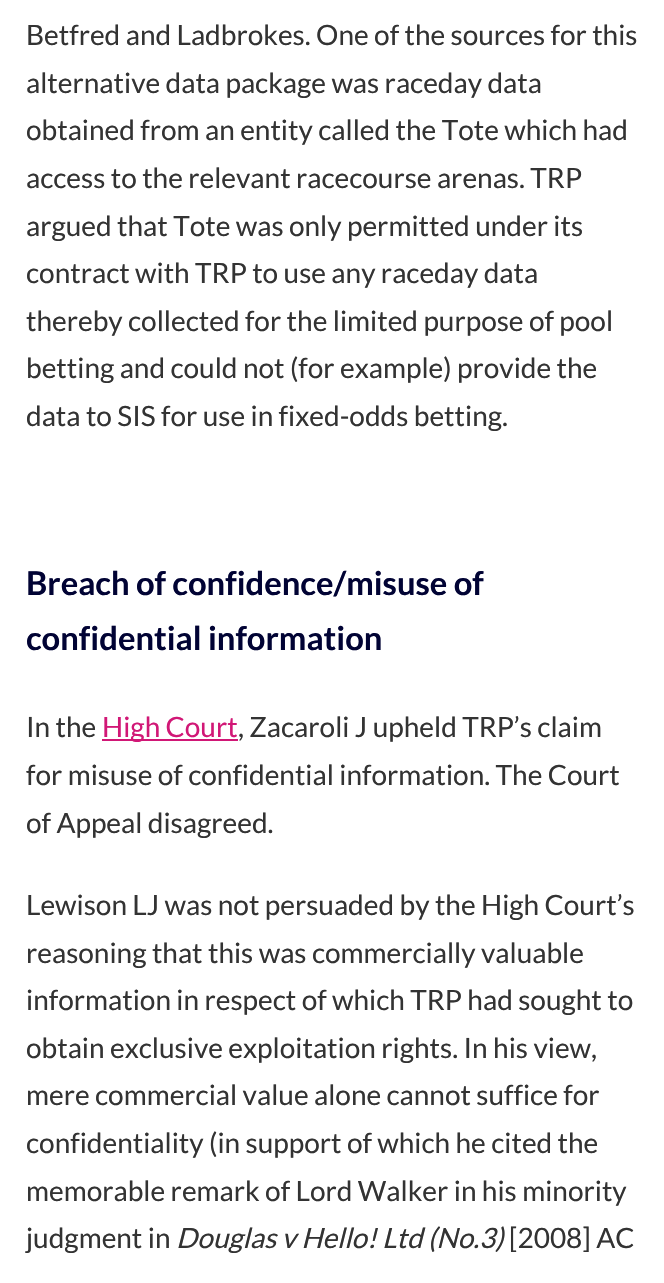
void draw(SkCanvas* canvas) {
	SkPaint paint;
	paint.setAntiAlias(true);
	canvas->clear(0xffffffff);
	SkFont f1(fontMgr->matchFamilyStyle("Lato", SkFontStyle::Normal()), 28);
	f1.setSubpixel(true);
	paint.setColor(0xff333333);
	canvas->drawString("Betfred and Ladbrokes. One of the sources for this", 26, 45, f1, paint);
	canvas->drawString("alternative data package was raceday data", 26, 93, f1, paint);
	canvas->drawString("obtained from an entity called the Tote which had", 26, 140, f1, paint);
	canvas->drawString("access to the relevant racecourse arenas. TRP", 26, 188, f1, paint);
	canvas->drawString("argued that Tote was only permitted under its", 26, 236, f1, paint);
	canvas->drawString("contract with TRP to use any raceday data", 26, 283, f1, paint);
	canvas->drawString("thereby collected for the limited purpose of pool", 26, 331, f1, paint);
	canvas->drawString("betting and could not (for example) provide the", 26, 378, f1, paint);
	canvas->drawString("data to SIS for use in fixed-odds betting.", 26, 426, f1, paint);
	SkFont f2(fontMgr->matchFamilyStyle("Lato", SkFontStyle::Bold()), 32.75);
	f2.setSubpixel(true);
	paint.setColor(0xff010334);
	canvas->drawString("Breach of confidence/misuse of", 26, 595, f2, paint);
	canvas->drawString("confidential information", 26, 650, f2, paint);
	paint.setColor(0xff333333);
	canvas->drawString("In the", 26, 737, f1, paint);
	paint.setColor(0xffd11776);
	canvas->drawRect(SkRect::MakeXYWH(102, 739, 136, 2), paint);
	canvas->drawString("High Court", 102, 737, f1, paint);
	paint.setColor(0xff333333);
	canvas->drawString(", Zacaroli J upheld TRP’s claim", 238, 737, f1, paint);
	canvas->drawString("for misuse of confidential information. The Court", 26, 785, f1, paint);
	canvas->drawString("of Appeal disagreed.", 26, 833, f1, paint);
	canvas->drawString("Lewison LJ was not persuaded by the High Court’s", 26, 915, f1, paint);
	canvas->drawString("reasoning that this was commercially valuable", 26, 963, f1, paint);
	canvas->drawString("information in respect of which TRP had sought to", 26, 1010, f1, paint);
	canvas->drawString("obtain exclusive exploitation rights. In his view,", 26, 1058, f1, paint);
	canvas->drawString("mere commercial value alone cannot suffice for", 26, 1105, f1, paint);
	canvas->drawString("confidentiality (in support of which he cited the", 26, 1153, f1, paint);
	canvas->drawString("memorable remark of Lord Walker in his minority", 26, 1201, f1, paint);
	canvas->drawString("judgment in", 26, 1248, f1, paint);
	SkFont f3(fontMgr->matchFamilyStyle("Lato", SkFontStyle::Italic()), 28);
	f3.setSubpixel(true);
	canvas->drawString("Douglas v Hello! Ltd (No.3)", 176, 1248, f3, paint);
	canvas->drawString("[2008] AC", 509, 1248, f1, paint);
}
